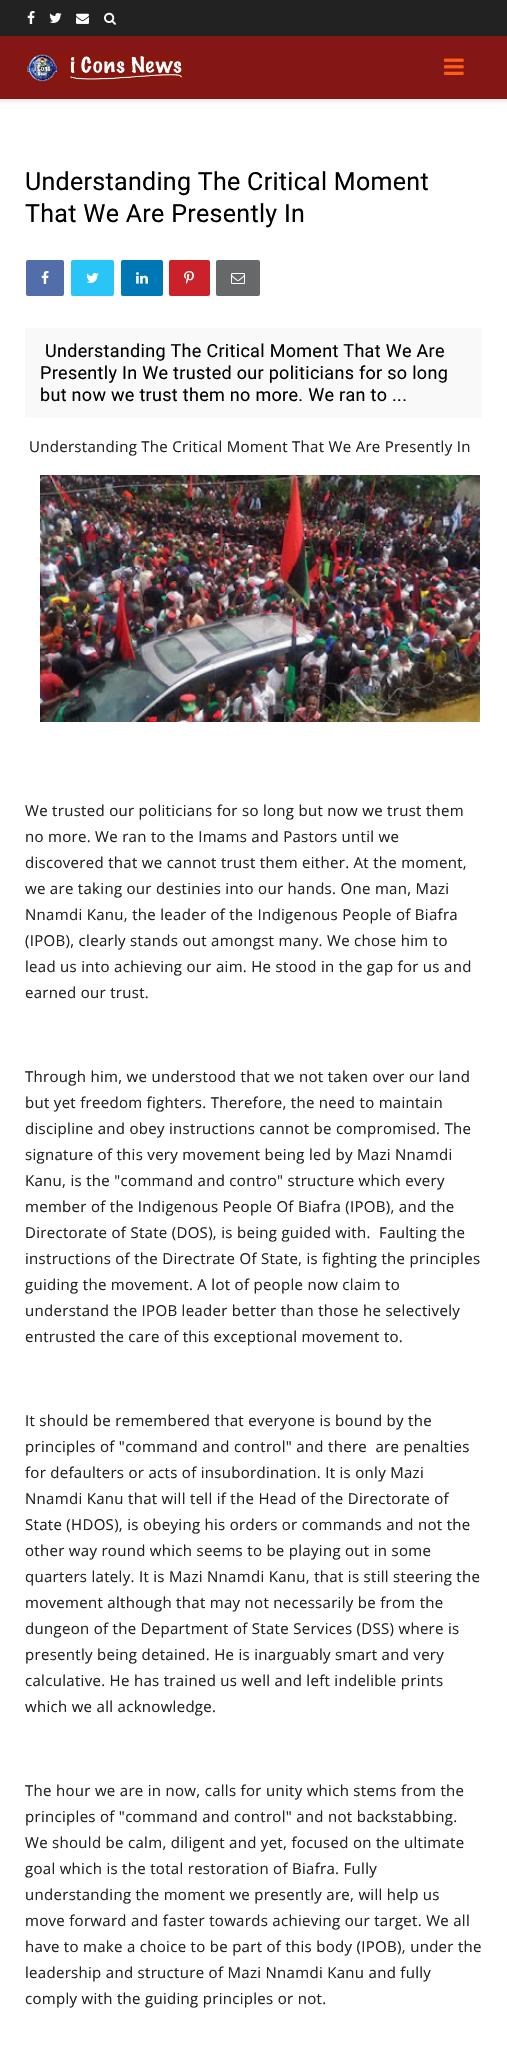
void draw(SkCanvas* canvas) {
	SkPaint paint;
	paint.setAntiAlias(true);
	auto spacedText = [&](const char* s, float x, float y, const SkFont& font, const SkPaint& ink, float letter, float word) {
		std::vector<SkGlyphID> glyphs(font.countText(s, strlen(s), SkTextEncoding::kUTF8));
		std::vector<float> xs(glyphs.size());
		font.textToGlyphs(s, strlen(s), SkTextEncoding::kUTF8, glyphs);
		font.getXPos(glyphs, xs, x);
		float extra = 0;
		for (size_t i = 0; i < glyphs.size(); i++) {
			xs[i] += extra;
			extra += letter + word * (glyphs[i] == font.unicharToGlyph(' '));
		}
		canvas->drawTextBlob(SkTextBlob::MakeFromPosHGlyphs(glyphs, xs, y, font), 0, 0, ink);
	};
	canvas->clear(0xffffffff);
	paint.setColor(0xff222222);
	canvas->drawRect(SkRect::MakeXYWH(0, 0, 507, 36), paint);
	canvas->drawImageRect(SkImages::DeferredFromEncodedData(SkData::MakeFromFileName("img1.png")), SkRect::MakeXYWH(27, 11, 8, 13), SkSamplingOptions());
	canvas->drawImageRect(SkImages::DeferredFromEncodedData(SkData::MakeFromFileName("img2.png")), SkRect::MakeXYWH(49, 13, 13, 10), SkSamplingOptions());
	canvas->drawImageRect(SkImages::DeferredFromEncodedData(SkData::MakeFromFileName("img3.png")), SkRect::MakeXYWH(76, 13, 13, 11), SkSamplingOptions());
	canvas->drawImageRect(SkImages::DeferredFromEncodedData(SkData::MakeFromFileName("img4.png")), SkRect::MakeXYWH(104, 12, 12, 13), SkSamplingOptions());
	paint.setColor(0x1c000000);
	paint.setMaskFilter(SkMaskFilter::MakeBlur(kNormal_SkBlurStyle, 2));
	canvas->drawRect(SkRect::MakeXYWH(-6, 46, 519, 55), paint);
	paint.setMaskFilter(nullptr);
	paint.setColor(0xff851616);
	canvas->drawRect(SkRect::MakeXYWH(0, 36, 507, 63), paint);
	canvas->drawImageRect(SkImages::DeferredFromEncodedData(SkData::MakeFromFileName("img5.png")), SkRect::MakeXYWH(25, 54, 160, 28), SkSamplingOptions());
	canvas->drawImageRect(SkImages::DeferredFromEncodedData(SkData::MakeFromFileName("img6.png")), SkRect::MakeXYWH(444, 58, 20, 17), SkSamplingOptions());
	SkFont f1(fontMgr->matchFamilyStyle("Roboto", SkFontStyle::Normal()), 25);
	f1.setSubpixel(true);
	paint.setColor(0xff000000);
	spacedText("Understanding The Critical Moment", 25, 190, f1, paint, 0.3, 0);
	spacedText("That We Are Presently In", 25, 222, f1, paint, 0.3, 0);
	paint.setColor(0xff516eab);
	canvas->drawRoundRect(SkRect::MakeXYWH(26, 260, 38, 36), 2, 2, paint);
	canvas->drawImageRect(SkImages::DeferredFromEncodedData(SkData::MakeFromFileName("img7.png")), SkRect::MakeXYWH(41, 271, 8, 13), SkSamplingOptions());
	paint.setColor(0xff29c5f6);
	canvas->drawRoundRect(SkRect::MakeXYWH(71, 260, 43, 36), 2, 2, paint);
	canvas->drawImageRect(SkImages::DeferredFromEncodedData(SkData::MakeFromFileName("img8.png")), SkRect::MakeXYWH(86, 273, 13, 10), SkSamplingOptions());
	paint.setColor(0xff0077b5);
	canvas->drawRoundRect(SkRect::MakeXYWH(121, 260, 42, 36), 2, 2, paint);
	canvas->drawImageRect(SkImages::DeferredFromEncodedData(SkData::MakeFromFileName("img9.png")), SkRect::MakeXYWH(136, 272, 12, 12), SkSamplingOptions());
	paint.setColor(0xffca212a);
	canvas->drawRoundRect(SkRect::MakeXYWH(169, 260, 41, 36), 2, 2, paint);
	canvas->drawImageRect(SkImages::DeferredFromEncodedData(SkData::MakeFromFileName("img10.png")), SkRect::MakeXYWH(184, 271, 10, 13), SkSamplingOptions());
	paint.setColor(0xff676869);
	canvas->drawRoundRect(SkRect::MakeXYWH(216, 260, 44, 36), 2, 2, paint);
	canvas->drawImageRect(SkImages::DeferredFromEncodedData(SkData::MakeFromFileName("img11.png")), SkRect::MakeXYWH(231, 273, 14, 11), SkSamplingOptions());
	paint.setColor(0xfff9f9f9);
	canvas->drawRect(SkRect::MakeXYWH(25, 328, 457, 90), paint);
	SkFont f2(fontMgr->matchFamilyStyle("Roboto", SkFontStyle::Normal()), 18);
	f2.setSubpixel(true);
	paint.setColor(0xff000000);
	spacedText("Understanding The Critical Moment That We Are", 45, 357, f2, paint, 0.3, 0);
	spacedText("Presently In We trusted our politicians for so long", 40, 379, f2, paint, 0.3, 0);
	spacedText("but now we trust them no more. We ran to ...", 40, 401, f2, paint, 0.3, 0);
	SkFont f3(fontMgr->matchFamilyStyle("Open Sans", SkFontStyle::Normal()), 15);
	f3.setSubpixel(true);
	paint.setColor(0xff222222);
	spacedText("Understanding The Critical Moment That We Are Presently In", 29, 452, f3, paint, 0.3, 0);
	canvas->drawImageRect(SkImages::DeferredFromEncodedData(SkData::MakeFromFileName("img12.png")), SkRect::MakeXYWH(40, 475, 440, 247), SkSamplingOptions());
	spacedText("We trusted our politicians for so long but now we trust them", 25, 816, f3, paint, 0.3, 0);
	spacedText("no more. We ran to the Imams and Pastors until we", 25, 842, f3, paint, 0.3, 0);
	spacedText("discovered that we cannot trust them either. At the moment,", 25, 868, f3, paint, 0.3, 0);
	spacedText("we are taking our destinies into our hands. One man, Mazi", 25, 894, f3, paint, 0.3, 0);
	spacedText("Nnamdi Kanu, the leader of the Indigenous People of Biafra", 25, 920, f3, paint, 0.3, 0);
	spacedText("(IPOB), clearly stands out amongst many. We chose him to", 25, 946, f3, paint, 0.3, 0);
	spacedText("lead us into achieving our aim. He stood in the gap for us and", 25, 972, f3, paint, 0.3, 0);
	spacedText("earned our trust.", 25, 998, f3, paint, 0.3, 0);
	spacedText("Through him, we understood that we not taken over our land", 25, 1082, f3, paint, 0.3, 0);
	spacedText("but yet freedom fighters. Therefore, the need to maintain", 25, 1108, f3, paint, 0.3, 0);
	spacedText("discipline and obey instructions cannot be compromised. The", 25, 1134, f3, paint, 0.3, 0);
	spacedText("signature of this very movement being led by Mazi Nnamdi", 25, 1160, f3, paint, 0.3, 0);
	spacedText("Kanu, is the \"command and contro\" structure which every", 25, 1186, f3, paint, 0.3, 0);
	spacedText("member of the Indigenous People Of Biafra (IPOB), and the", 25, 1212, f3, paint, 0.3, 0);
	spacedText("Directorate of State (DOS), is being guided with.  Faulting the", 25, 1238, f3, paint, 0.3, 0);
	spacedText("instructions of the Directrate Of State, is fighting the principles", 25, 1264, f3, paint, 0.3, 0);
	spacedText("guiding the movement. A lot of people now claim to", 25, 1290, f3, paint, 0.3, 0);
	spacedText("understand the IPOB leader better than those he selectively", 25, 1316, f3, paint, 0.3, 0);
	spacedText("entrusted the care of this exceptional movement to.", 25, 1342, f3, paint, 0.3, 0);
	spacedText("It should be remembered that everyone is bound by the", 25, 1426, f3, paint, 0.3, 0);
	spacedText("principles of \"command and control\" and there  are penalties", 25, 1452, f3, paint, 0.3, 0);
	spacedText("for defaulters or acts of insubordination. It is only Mazi", 25, 1478, f3, paint, 0.3, 0);
	spacedText("Nnamdi Kanu that will tell if the Head of the Directorate of", 25, 1504, f3, paint, 0.3, 0);
	spacedText("State (HDOS), is obeying his orders or commands and not the", 25, 1530, f3, paint, 0.3, 0);
	spacedText("other way round which seems to be playing out in some", 25, 1556, f3, paint, 0.3, 0);
	spacedText("quarters lately. It is Mazi Nnamdi Kanu, that is still steering the", 25, 1582, f3, paint, 0.3, 0);
	spacedText("movement although that may not necessarily be from the", 25, 1608, f3, paint, 0.3, 0);
	spacedText("dungeon of the Department of State Services (DSS) where is", 25, 1634, f3, paint, 0.3, 0);
	spacedText("presently being detained. He is inarguably smart and very", 25, 1660, f3, paint, 0.3, 0);
	spacedText("calculative. He has trained us well and left indelible prints", 25, 1686, f3, paint, 0.3, 0);
	spacedText("which we all acknowledge.", 25, 1712, f3, paint, 0.3, 0);
	spacedText("The hour we are in now, calls for unity which stems from the", 25, 1796, f3, paint, 0.3, 0);
	spacedText("principles of \"command and control\" and not backstabbing.", 25, 1822, f3, paint, 0.3, 0);
	spacedText("We should be calm, diligent and yet, focused on the ultimate", 25, 1848, f3, paint, 0.3, 0);
	spacedText("goal which is the total restoration of Biafra. Fully", 25, 1874, f3, paint, 0.3, 0);
	spacedText("understanding the moment we presently are, will help us", 25, 1900, f3, paint, 0.3, 0);
	spacedText("move forward and faster towards achieving our target. We all", 25, 1926, f3, paint, 0.3, 0);
	spacedText("have to make a choice to be part of this body (IPOB), under the", 25, 1952, f3, paint, 0.3, 0);
	spacedText("leadership and structure of Mazi Nnamdi Kanu and fully", 25, 1978, f3, paint, 0.3, 0);
	spacedText("comply with the guiding principles or not.", 25, 2004, f3, paint, 0.3, 0);
}
